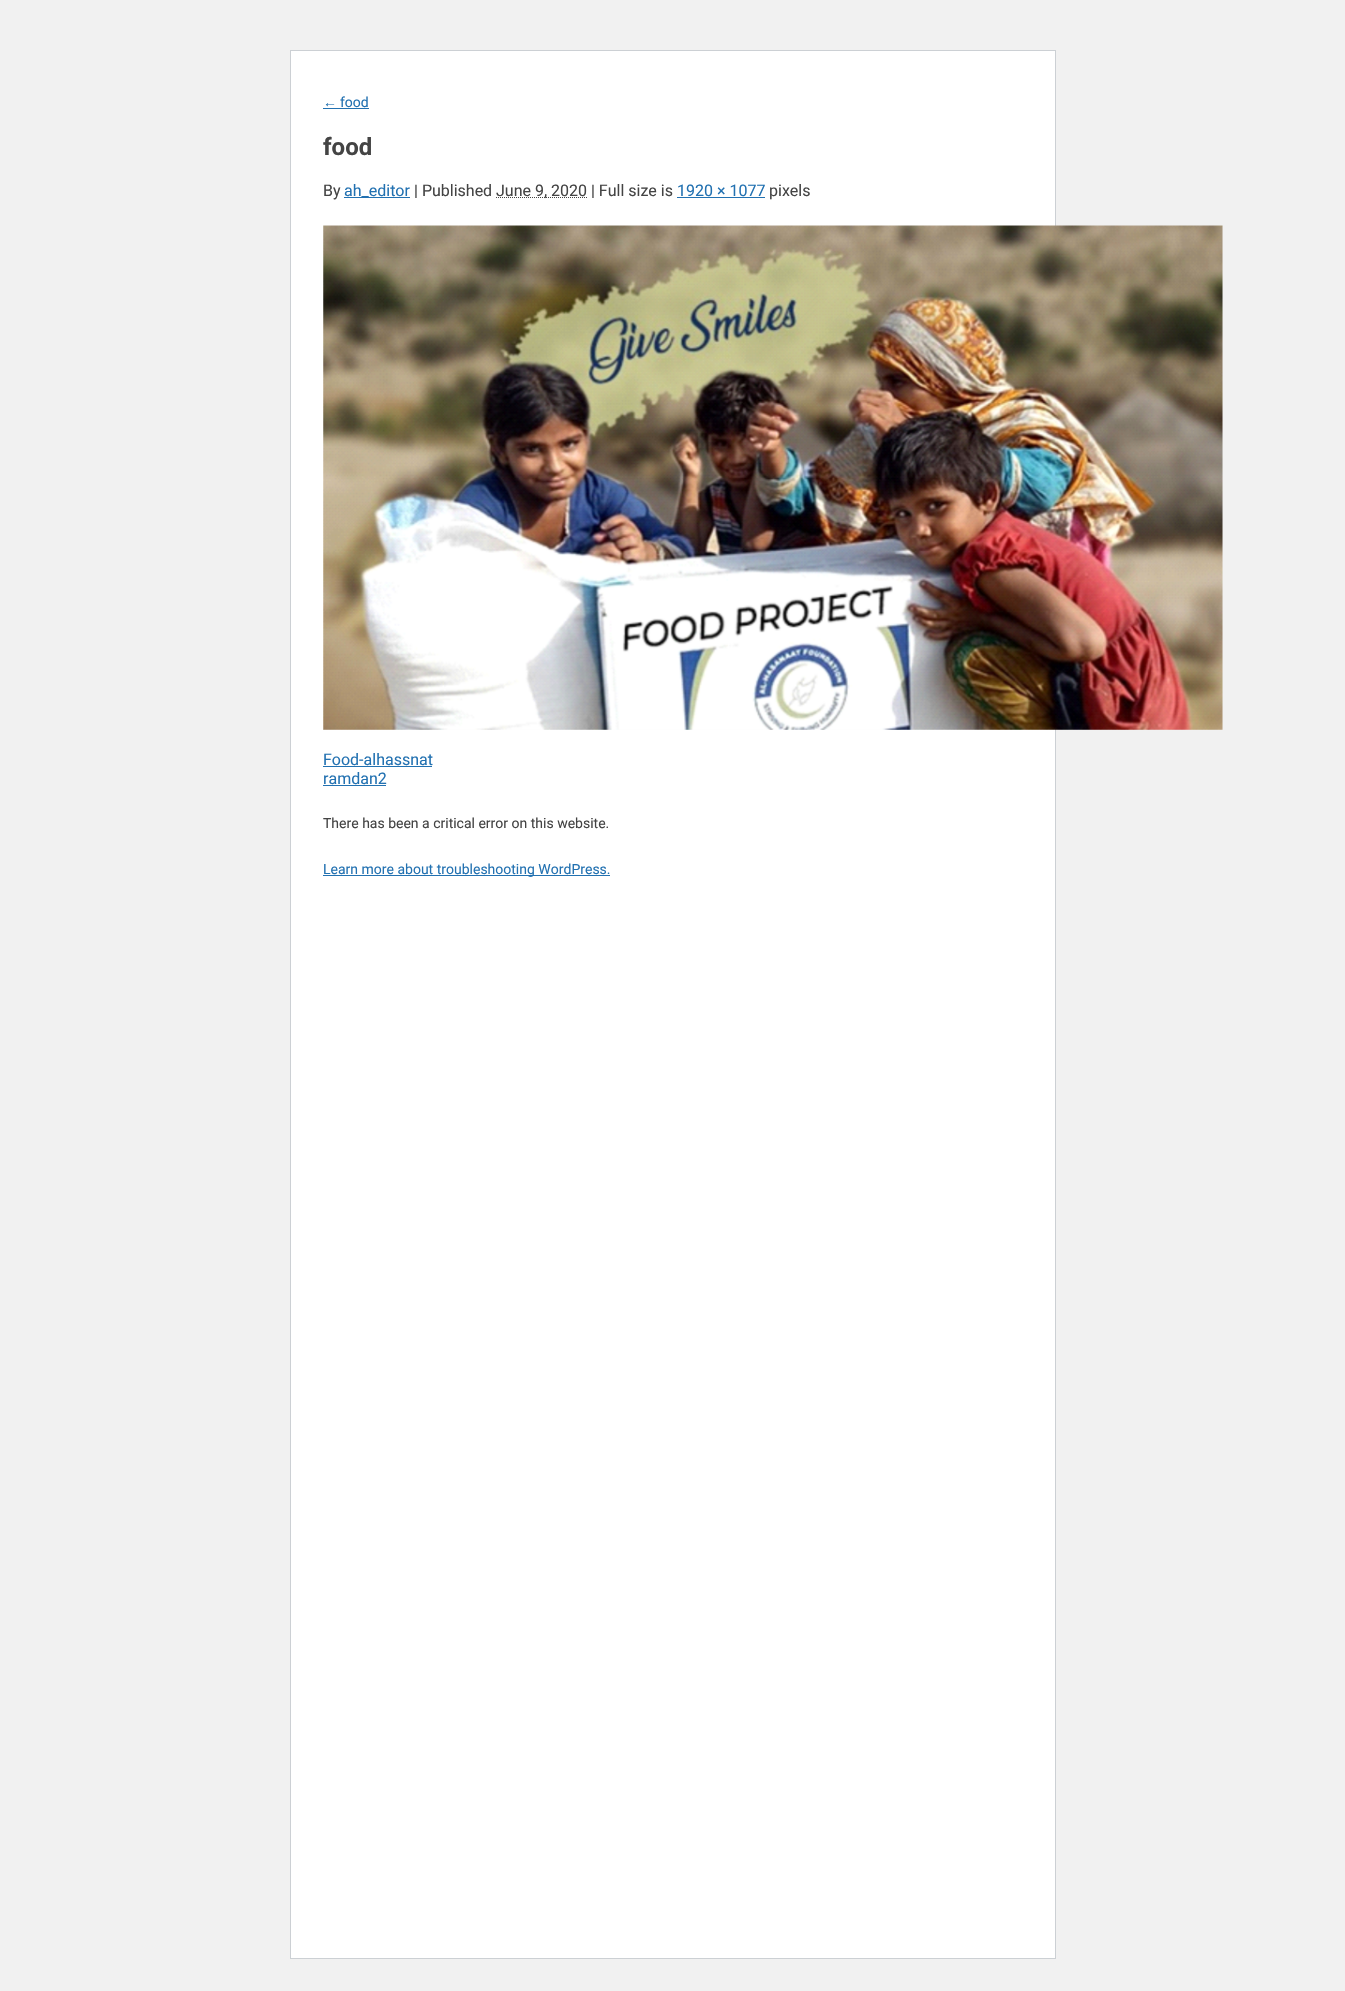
void draw(SkCanvas* canvas) {
	SkPaint paint;
	paint.setAntiAlias(true);
	auto svgPath = [&](const char* data, bool evenOdd = false) {
		SkPath result = *SkParsePath::FromSVGString(data);
		if (evenOdd) result.setFillType(SkPathFillType::kEvenOdd);
		return result;
	};
	canvas->clear(0xfff1f1f1);
	paint.setColor(0xffffffff);
	canvas->drawRect(SkRect::MakeXYWH(290.5, 50.5, 765, 1908), paint);
	paint.setStroke(true);
	paint.setStrokeWidth(1);
	paint.setColor(0xffccd0d4);
	canvas->drawRect(SkRect::MakeXYWH(290.5, 50.5, 765, 1908), paint);
	SkFont f1(fontMgr->matchFamilyStyle("Liberation Sans", SkFontStyle::Normal()), 14);
	f1.setSubpixel(true);
	paint.setStroke(false);
	paint.setColor(0xff2271b1);
	canvas->drawString("←", 323, 107, f1, paint);
	canvas->drawRect(SkRect::MakeXYWH(323, 108, 46, 1), paint);
	SkFont f2(fontMgr->matchFamilyStyle("Roboto", SkFontStyle::Normal()), 14);
	f2.setSubpixel(true);
	canvas->drawString("food", 340, 107, f2, paint);
	SkFont f3(fontMgr->matchFamilyStyle("Roboto", SkFontStyle::Bold()), 24);
	f3.setSubpixel(true);
	paint.setColor(0xff444444);
	canvas->drawString("food", 323, 155, f3, paint);
	SkFont f4(fontMgr->matchFamilyStyle("Roboto", SkFontStyle::Normal()), 16);
	f4.setSubpixel(true);
	canvas->drawString("By", 323, 196, f4, paint);
	paint.setColor(0xff2271b1);
	canvas->drawRect(SkRect::MakeXYWH(344, 197, 66, 1), paint);
	canvas->drawString("ah_editor", 344, 196, f4, paint);
	paint.setColor(0xff444444);
	canvas->drawString("| Published", 414, 196, f4, paint);
	paint.setStroke(true);
	paint.setPathEffect(SkDashPathEffect::Make({{1, 1}}, 0));
	canvas->drawPath(svgPath("M496 197.5H587"), paint);
	paint.setPathEffect(nullptr);
	paint.setStroke(false);
	canvas->drawString("June 9, 2020 | Full size is", 496, 196, f4, paint);
	paint.setColor(0xff2271b1);
	canvas->drawString("1920 × 1077", 677, 196, f4, paint);
	canvas->drawRect(SkRect::MakeXYWH(677, 197, 88, 1), paint);
	paint.setColor(0xff444444);
	canvas->drawString("pixels", 769, 196, f4, paint);
	canvas->drawImageRect(SkImages::DeferredFromEncodedData(SkData::MakeFromFileName("img1.png")), SkRect::MakeXYWH(323, 225, 900, 505), SkSamplingOptions());
	paint.setColor(0xff2271b1);
	canvas->drawString("Food-alhassnat", 323, 765, f4, paint);
	canvas->drawRect(SkRect::MakeXYWH(323, 766, 109, 1), paint);
	canvas->drawString("ramdan2", 323, 784, f4, paint);
	canvas->drawRect(SkRect::MakeXYWH(323, 785, 63, 1), paint);
	paint.setColor(0xff444444);
	canvas->drawString("There has been a critical error on this website.", 323, 828, f2, paint);
	paint.setColor(0xff2271b1);
	canvas->drawRect(SkRect::MakeXYWH(323, 875, 287, 1), paint);
	canvas->drawString("Learn more about troubleshooting WordPress.", 323, 874, f2, paint);
}
